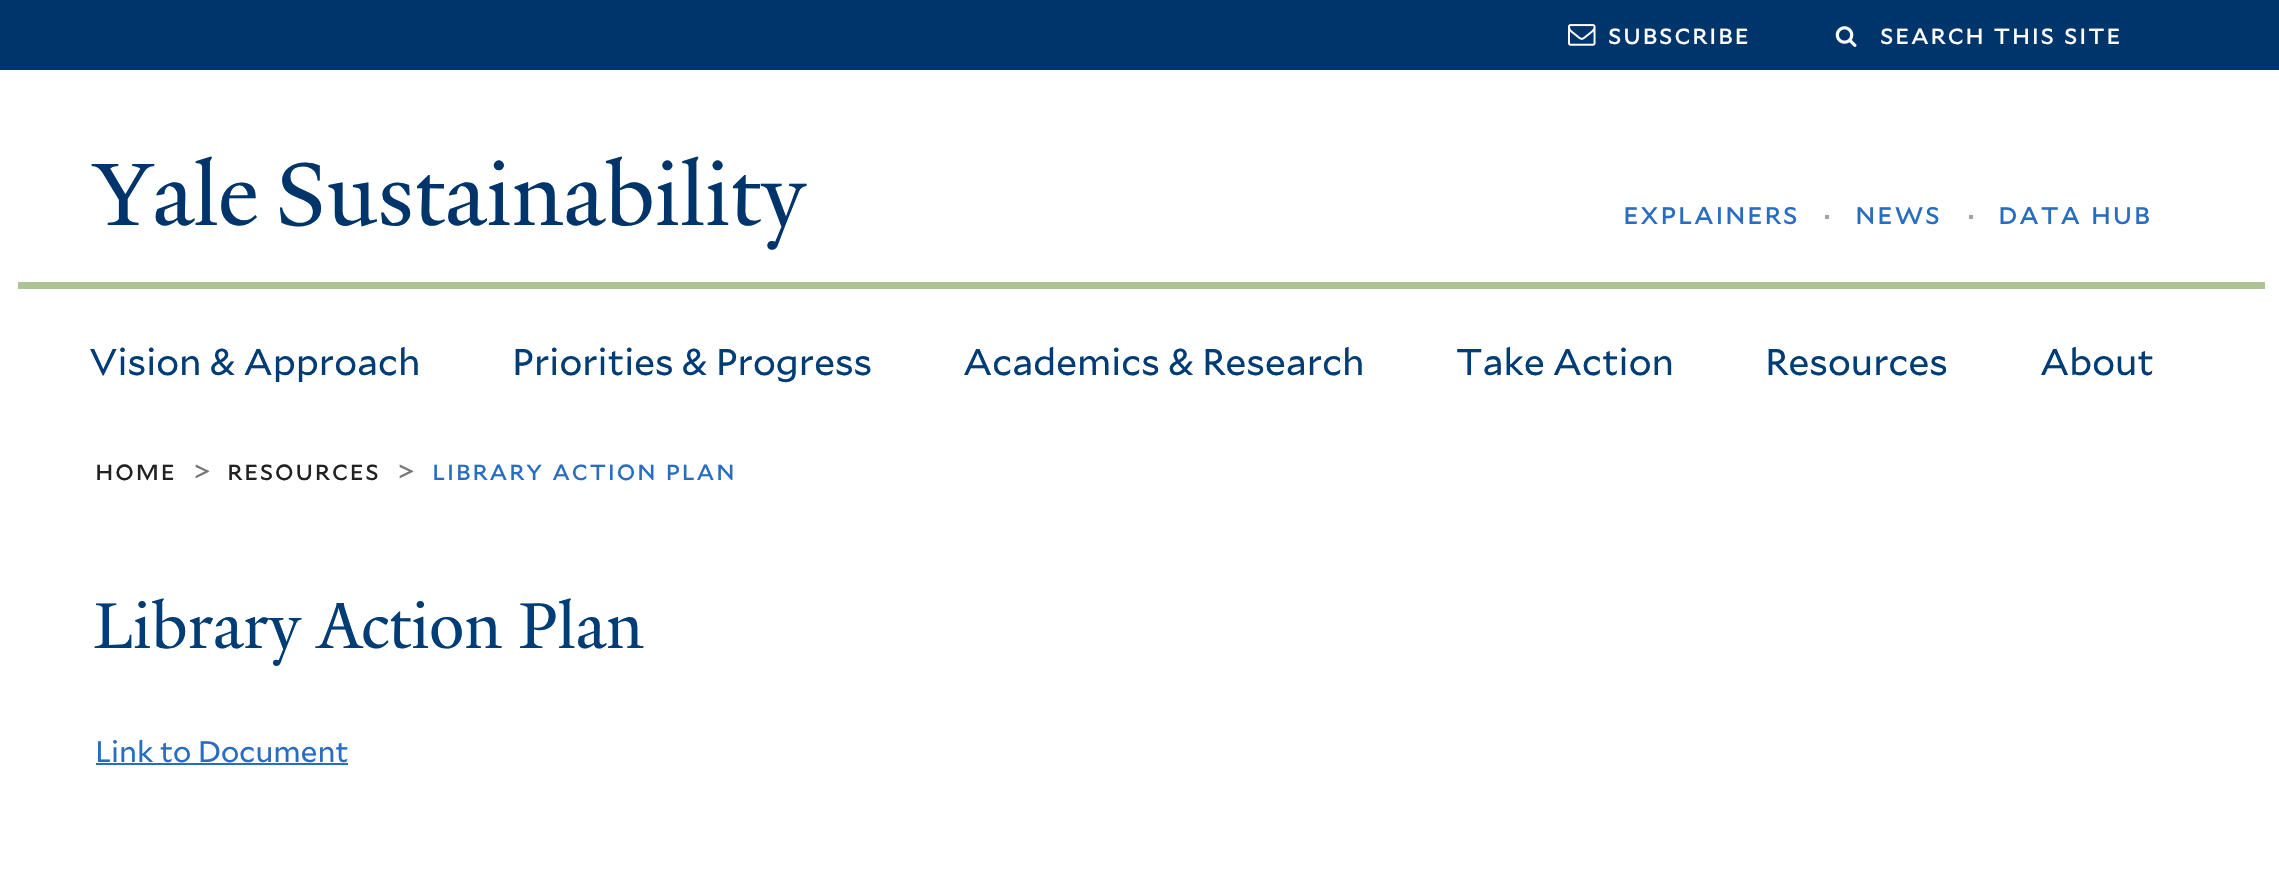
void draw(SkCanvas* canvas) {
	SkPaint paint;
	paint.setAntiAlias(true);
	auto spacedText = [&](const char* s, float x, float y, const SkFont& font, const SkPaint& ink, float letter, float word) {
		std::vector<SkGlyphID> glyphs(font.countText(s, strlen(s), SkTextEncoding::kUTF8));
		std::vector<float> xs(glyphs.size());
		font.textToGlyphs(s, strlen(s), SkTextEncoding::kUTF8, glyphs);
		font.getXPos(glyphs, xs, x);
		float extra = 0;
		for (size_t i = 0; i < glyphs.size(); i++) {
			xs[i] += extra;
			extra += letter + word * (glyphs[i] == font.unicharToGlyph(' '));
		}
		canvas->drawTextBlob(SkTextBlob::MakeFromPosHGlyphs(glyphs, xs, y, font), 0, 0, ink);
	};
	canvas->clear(0xffffffff);
	paint.setColor(0xff00356b);
	canvas->drawRect(SkRect::MakeXYWH(0, 0, 2279, 70), paint);
	canvas->drawImageRect(SkImages::DeferredFromEncodedData(SkData::MakeFromFileName("img1.png")), SkRect::MakeXYWH(1568, 24, 28, 22), SkSamplingOptions());
	SkFont f1(fontMgr->matchFamilyStyle("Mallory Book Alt", SkFontStyle::Normal()), 27.5);
	f1.setSubpixel(true);
	paint.setColor(0xffffffff);
	spacedText("subscribe", 1608, 44, f1, paint, 1.4, 0);
	canvas->drawImageRect(SkImages::DeferredFromEncodedData(SkData::MakeFromFileName("img2.png")), SkRect::MakeXYWH(1835, 26, 22, 21), SkSamplingOptions());
	spacedText("search this site", 1880, 44, f1, paint, 1.4, 1);
	SkFont f2(fontMgr->matchFamilyStyle("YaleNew", SkFontStyle::Normal()), 96.25);
	f2.setSubpixel(true);
	paint.setColor(0xff00356b);
	spacedText("Yale Sustainability", 94, 225, f2, paint, 0, -6);
	SkFont f3(fontMgr->matchFamilyStyle("Mallory Book Alt", SkFontStyle::Normal()), 30.25);
	f3.setSubpixel(true);
	paint.setColor(0xff286dc0);
	spacedText("explainers", 1623, 224, f3, paint, 1.4, 0);
	paint.setColor(0xffa3a3a3);
	canvas->drawRect(SkRect::MakeXYWH(1825, 215, 4, 4), paint);
	paint.setColor(0xff286dc0);
	spacedText("news", 1855, 224, f3, paint, 1.4, 0);
	paint.setColor(0xffa3a3a3);
	canvas->drawRect(SkRect::MakeXYWH(1969, 215, 4, 4), paint);
	paint.setColor(0xff286dc0);
	spacedText("data hub", 1998, 224, f3, paint, 1.4, 1);
	paint.setColor(0xffacc392);
	canvas->drawRect(SkRect::MakeXYWH(18, 282, 2247, 7), paint);
	SkFont f4(fontMgr->matchFamilyStyle("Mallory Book", SkFontStyle::Normal()), 37.1);
	f4.setSubpixel(true);
	paint.setColor(0xff003c76);
	canvas->drawString("Vision & Approach", 89, 375, f4, paint);
	canvas->drawString("Priorities & Progress", 512, 375, f4, paint);
	canvas->drawString("Academics & Research", 963, 375, f4, paint);
	canvas->drawString("Take Action", 1456, 375, f4, paint);
	canvas->drawString("Resources", 1765, 375, f4, paint);
	canvas->drawString("About", 2040, 375, f4, paint);
	paint.setColor(0xff222222);
	spacedText("home", 95, 480, f1, paint, 1.4, 0);
	SkFont f5(fontMgr->matchFamilyStyle("Mallory Book", SkFontStyle::Normal()), 27.5);
	f5.setSubpixel(true);
	paint.setColor(0xff767676);
	spacedText(">", 194, 481, f5, paint, 1.4, 0);
	paint.setColor(0xff222222);
	spacedText("resources", 227, 480, f1, paint, 1.4, 0);
	paint.setColor(0xff767676);
	spacedText(">", 398, 481, f5, paint, 1.4, 0);
	paint.setColor(0xff286dc0);
	spacedText("library action plan", 432, 480, f1, paint, 1.4, 1);
	SkFont f6(fontMgr->matchFamilyStyle("YaleNew", SkFontStyle::Normal()), 70);
	f6.setSubpixel(true);
	paint.setColor(0xff003c76);
	spacedText("Library Action Plan", 94, 648, f6, paint, 0, 1);
	SkFont f7(fontMgr->matchFamilyStyle("Mallory Book", SkFontStyle::Normal()), 29.75);
	f7.setSubpixel(true);
	paint.setColor(0xff286dc0);
	canvas->drawString("Link to Document", 95, 762, f7, paint);
	canvas->drawRect(SkRect::MakeXYWH(96, 763, 252, 2), paint);
}
